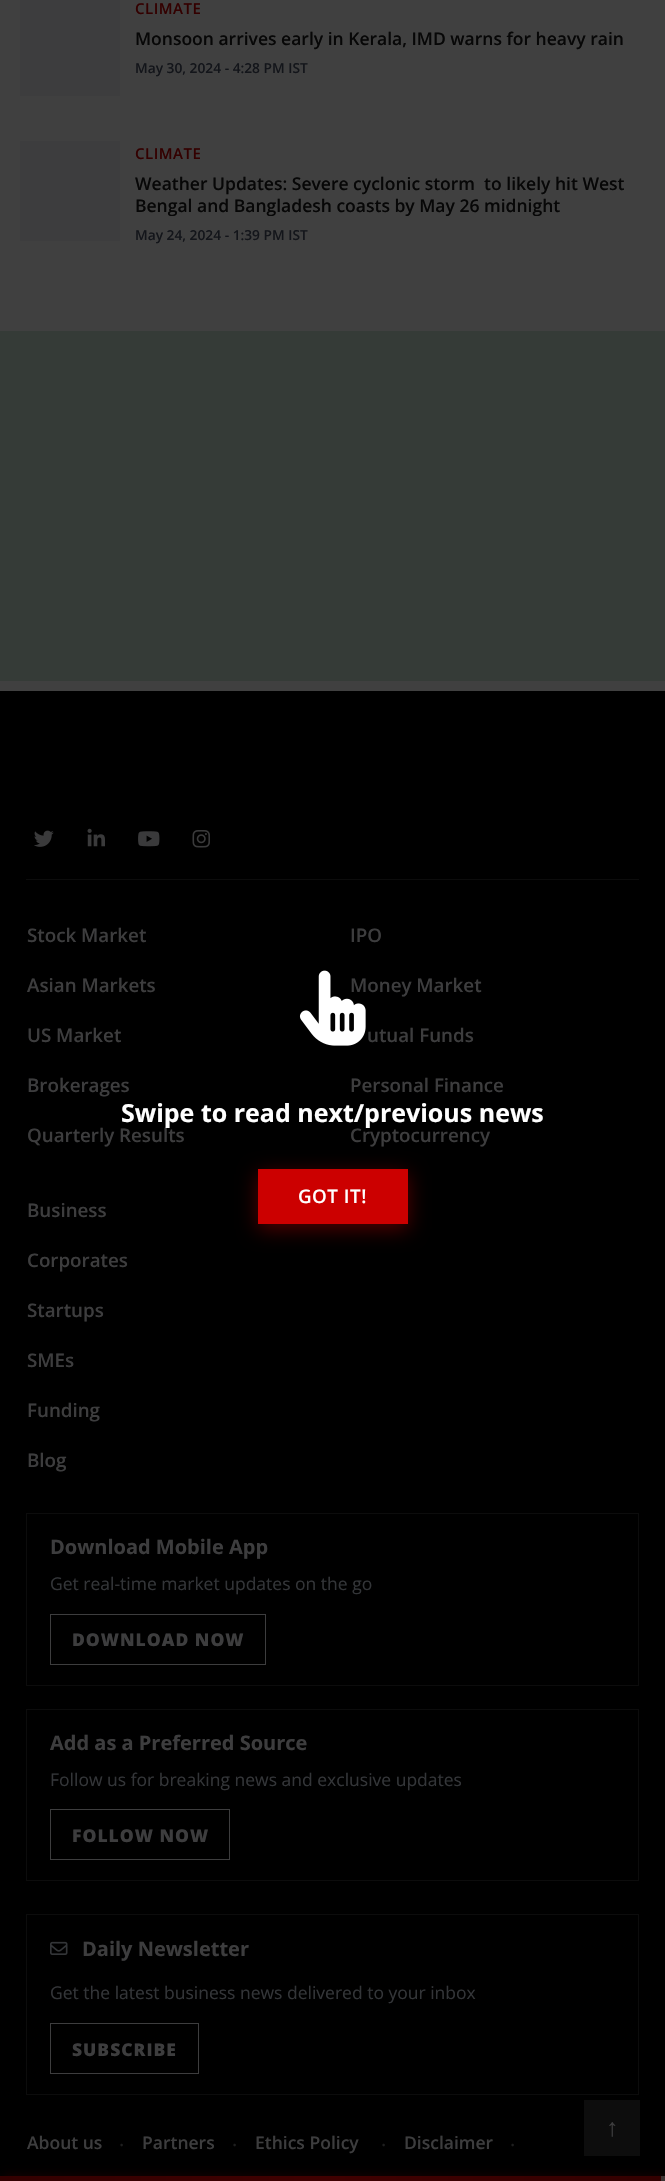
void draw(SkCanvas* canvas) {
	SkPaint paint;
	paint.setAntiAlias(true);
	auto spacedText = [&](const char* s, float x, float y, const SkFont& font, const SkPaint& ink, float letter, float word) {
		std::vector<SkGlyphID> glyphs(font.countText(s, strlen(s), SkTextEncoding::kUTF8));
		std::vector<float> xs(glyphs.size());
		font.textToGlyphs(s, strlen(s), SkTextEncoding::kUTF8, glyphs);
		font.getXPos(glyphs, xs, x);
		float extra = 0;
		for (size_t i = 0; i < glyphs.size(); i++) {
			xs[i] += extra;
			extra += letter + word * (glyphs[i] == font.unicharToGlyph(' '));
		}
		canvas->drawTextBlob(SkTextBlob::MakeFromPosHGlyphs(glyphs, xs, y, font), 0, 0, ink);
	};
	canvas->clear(0xff404040);
	paint.setColor(0xff3d3d3e);
	canvas->drawRect(SkRect::MakeXYWH(20, 0, 100, 96), paint);
	SkFont f1(fontMgr->matchFamilyStyle("Open Sans", SkFontStyle(600, SkFontStyle::kNormal_Width, SkFontStyle::kUpright_Slant)), 15);
	f1.setSubpixel(true);
	paint.setColor(0xff330000);
	spacedText("CLIMATE", 135, 14, f1, paint, 0.5, 0);
	SkFont f2(fontMgr->matchFamilyStyle("Open Sans", SkFontStyle(600, SkFontStyle::kNormal_Width, SkFontStyle::kUpright_Slant)), 17.5);
	f2.setSubpixel(true);
	paint.setColor(0xff070707);
	canvas->drawString("Monsoon arrives early in Kerala, IMD warns for heavy rain", 135, 45, f2, paint);
	SkFont f3(fontMgr->matchFamilyStyle("Open Sans", SkFontStyle(600, SkFontStyle::kNormal_Width, SkFontStyle::kUpright_Slant)), 13.75);
	f3.setSubpixel(true);
	paint.setColor(0xff13151a);
	canvas->drawString("May 30, 2024 - 4:28 PM IST", 135, 73, f3, paint);
	paint.setColor(0xff3d3d3e);
	canvas->drawRect(SkRect::MakeXYWH(20, 141, 100, 100), paint);
	paint.setColor(0xff330000);
	spacedText("CLIMATE", 135, 159, f1, paint, 0.5, 0);
	paint.setColor(0xff070707);
	canvas->drawString("Weather Updates: Severe cyclonic storm  to likely hit West", 135, 190, f2, paint);
	canvas->save();
	canvas->clipRect(SkRect::MakeXYWH(135, 173, 510, 43));
	canvas->drawString("Bengal and Bangladesh coasts by May 26 midnight", 135, 212, f2, paint);
	canvas->restore();
	paint.setColor(0xff13151a);
	canvas->drawString("May 24, 2024 - 1:39 PM IST", 135, 240, f3, paint);
	paint.setColor(0xff353b37);
	canvas->drawRect(SkRect::MakeXYWH(0, 331, 665, 350), paint);
	paint.setColor(0xff000000);
	canvas->drawRect(SkRect::MakeXYWH(0, 691, 665, 1485), paint);
	paint.setColor(0xff0c0c0c);
	canvas->drawRect(SkRect::MakeXYWH(26, 879, 613, 1), paint);
	canvas->drawImageRect(SkImages::DeferredFromEncodedData(SkData::MakeFromFileName("img1.png")), SkRect::MakeXYWH(34, 830, 20, 17), SkSamplingOptions());
	canvas->drawImageRect(SkImages::DeferredFromEncodedData(SkData::MakeFromFileName("img2.png")), SkRect::MakeXYWH(87, 828, 18, 19), SkSamplingOptions());
	canvas->drawImageRect(SkImages::DeferredFromEncodedData(SkData::MakeFromFileName("img3.png")), SkRect::MakeXYWH(138, 831, 22, 16), SkSamplingOptions());
	canvas->drawImageRect(SkImages::DeferredFromEncodedData(SkData::MakeFromFileName("img4.png")), SkRect::MakeXYWH(192, 830, 18, 18), SkSamplingOptions());
	SkFont f4(fontMgr->matchFamilyStyle("Open Sans", SkFontStyle(600, SkFontStyle::kNormal_Width, SkFontStyle::kUpright_Slant)), 18.75);
	f4.setSubpixel(true);
	paint.setColor(0xff3d3d3e);
	canvas->drawString("Stock Market", 27, 942, f4, paint);
	canvas->drawString("Asian Markets", 27, 992, f4, paint);
	canvas->drawString("US Market", 27, 1042, f4, paint);
	canvas->drawString("Brokerages", 27, 1092, f4, paint);
	canvas->drawString("Quarterly Results", 27, 1142, f4, paint);
	canvas->drawString("IPO", 350, 942, f4, paint);
	canvas->drawString("Money Market", 350, 992, f4, paint);
	canvas->drawString("utual Funds", 367, 1042, f4, paint);
	canvas->drawString("Personal Finance", 350, 1092, f4, paint);
	canvas->drawString("Cryptocurrency", 350, 1142, f4, paint);
	canvas->drawString("Business", 27, 1217, f4, paint);
	canvas->drawString("Corporates", 27, 1267, f4, paint);
	canvas->drawString("Startups", 27, 1317, f4, paint);
	canvas->drawString("SMEs", 27, 1367, f4, paint);
	canvas->drawString("Funding", 27, 1417, f4, paint);
	canvas->drawString("Blog", 27, 1467, f4, paint);
	paint.setStroke(true);
	paint.setStrokeWidth(1);
	paint.setColor(0xff0c0c0c);
	canvas->drawRect(SkRect::MakeXYWH(26.5, 1513.5, 612, 172), paint);
	SkFont f5(fontMgr->matchFamilyStyle("Open Sans", SkFontStyle::Bold()), 20);
	f5.setSubpixel(true);
	paint.setStroke(false);
	paint.setColor(0xff3d3d3e);
	canvas->drawString("Download Mobile App", 50, 1554, f5, paint);
	SkFont f6(fontMgr->matchFamilyStyle("Open Sans", SkFontStyle::Normal()), 17.5);
	f6.setSubpixel(true);
	paint.setColor(0xff333538);
	canvas->drawString("Get real-time market updates on the go", 50, 1590, f6, paint);
	paint.setStroke(true);
	paint.setColor(0xff3d3d3e);
	canvas->drawRect(SkRect::MakeXYWH(50.5, 1614.5, 215, 50), paint);
	SkFont f7(fontMgr->matchFamilyStyle("Open Sans", SkFontStyle(800, SkFontStyle::kNormal_Width, SkFontStyle::kUpright_Slant)), 17.5);
	f7.setSubpixel(true);
	paint.setStroke(false);
	spacedText("DOWNLOAD NOW", 72, 1646, f7, paint, 1, 0);
	paint.setStroke(true);
	paint.setColor(0xff0c0c0c);
	canvas->drawRect(SkRect::MakeXYWH(26.5, 1709.5, 612, 171), paint);
	paint.setStroke(false);
	paint.setColor(0xff3d3d3e);
	canvas->drawString("Add as a Preferred Source", 50, 1750, f5, paint);
	paint.setColor(0xff333538);
	canvas->drawString("Follow us for breaking news and exclusive updates", 50, 1786, f6, paint);
	paint.setStroke(true);
	paint.setColor(0xff3d3d3e);
	canvas->drawRect(SkRect::MakeXYWH(50.5, 1809.5, 179, 50), paint);
	paint.setStroke(false);
	spacedText("FOLLOW NOW", 72, 1842, f7, paint, 1, 0);
	paint.setStroke(true);
	paint.setColor(0xff0c0c0c);
	canvas->drawRect(SkRect::MakeXYWH(26.5, 1914.5, 612, 180), paint);
	canvas->drawImageRect(SkImages::DeferredFromEncodedData(SkData::MakeFromFileName("img5.png")), SkRect::MakeXYWH(50, 1941, 18, 14), SkSamplingOptions());
	paint.setStroke(false);
	paint.setColor(0xff3d3d3e);
	canvas->drawString("Daily Newsletter", 82, 1956, f5, paint);
	paint.setColor(0xff333538);
	canvas->drawString("Get the latest business news delivered to your inbox", 50, 1999, f6, paint);
	paint.setStroke(true);
	paint.setColor(0xff3d3d3e);
	canvas->drawRect(SkRect::MakeXYWH(50.5, 2023.5, 148, 50), paint);
	paint.setStroke(false);
	spacedText("SUBSCRIBE", 72, 2056, f7, paint, 1, 0);
	canvas->drawString("About us", 27, 2149, f2, paint);
	SkFont f8(fontMgr->matchFamilyStyle("Open Sans", SkFontStyle::Normal()), 20);
	f8.setSubpixel(true);
	paint.setColor(0xff1f1f1f);
	canvas->drawString("·", 119, 2152, f8, paint);
	paint.setColor(0xff3d3d3e);
	canvas->drawString("Partners", 142, 2149, f2, paint);
	paint.setColor(0xff1f1f1f);
	canvas->drawString("·", 232, 2152, f8, paint);
	paint.setColor(0xff3d3d3e);
	canvas->drawString("Ethics Policy", 255, 2149, f2, paint);
	paint.setColor(0xff1f1f1f);
	canvas->drawString("·", 381, 2152, f8, paint);
	paint.setColor(0xff3d3d3e);
	canvas->drawString("Disclaimer", 404, 2149, f2, paint);
	paint.setColor(0xff1f1f1f);
	canvas->drawString("·", 510, 2152, f8, paint);
	canvas->drawImageRect(SkImages::DeferredFromEncodedData(SkData::MakeFromFileName("img6.png")), SkRect::MakeXYWH(299, 970, 67, 76), SkSamplingOptions());
	SkFont f9(fontMgr->matchFamilyStyle("Open Sans", SkFontStyle::Bold()), 25);
	f9.setSubpixel(true);
	paint.setColor(0xffffffff);
	canvas->drawString("Swipe to read next/previous news", 121, 1122, f9, paint);
	paint.setColor(0x66cc0000);
	paint.setMaskFilter(SkMaskFilter::MakeBlur(kNormal_SkBlurStyle, 10));
	canvas->drawRect(SkRect::MakeXYWH(258, 1174, 150, 55), paint);
	paint.setMaskFilter(nullptr);
	paint.setColor(0xffcc0000);
	canvas->drawRect(SkRect::MakeXYWH(258, 1169, 150, 55), paint);
	paint.setColor(0xffffffff);
	spacedText("GOT IT!", 298, 1203, f4, paint, 0.5, 0);
	paint.setColor(0xff0d0d0d);
	canvas->drawRect(SkRect::MakeXYWH(584, 2100, 56, 56), paint);
	SkFont f10(fontMgr->matchFamilyStyle("Liberation Sans", SkFontStyle::Normal()), 25);
	f10.setSubpixel(true);
	paint.setColor(0xff3d3d3e);
	canvas->drawString("↑", 606, 2136, f10, paint);
	paint.setColor(0x99330000);
	paint.setMaskFilter(SkMaskFilter::MakeBlur(kNormal_SkBlurStyle, 5));
	canvas->drawRect(SkRect::MakeXYWH(3, 2176, 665, 5), paint);
	paint.setMaskFilter(nullptr);
	{
		const SkColor colors[] = {0xff330000, 0xff400000, 0xff330000};
		const float stops[] = {0, 0.5, 1};
		const SkPoint ends[] = {{0, 2179}, {665, 2179}};
		paint.setShader(SkGradientShader::MakeLinear(ends, colors, stops, 3, SkTileMode::kClamp));
		paint.setAlpha(255);
	}
	canvas->drawRect(SkRect::MakeXYWH(0, 2176, 665, 5), paint);
	paint.setShader(nullptr);
	paint.setColor(0xcc404040);
	canvas->drawRect(SkRect::MakeXYWH(661, 2176, 4, 5), paint);
}
